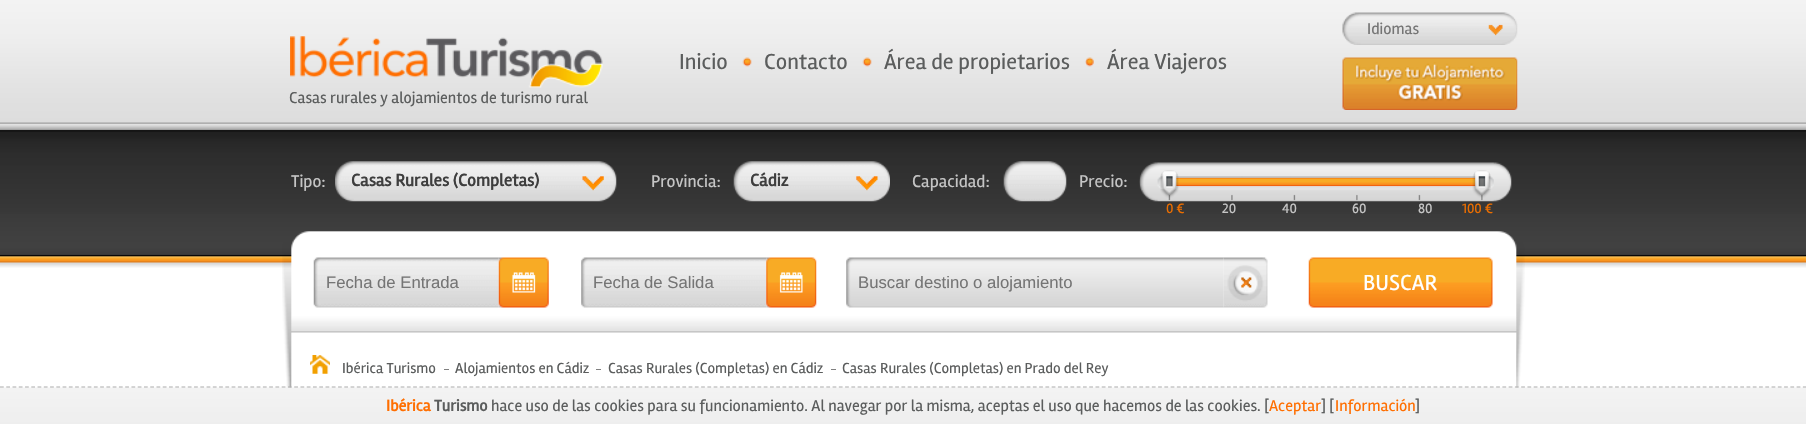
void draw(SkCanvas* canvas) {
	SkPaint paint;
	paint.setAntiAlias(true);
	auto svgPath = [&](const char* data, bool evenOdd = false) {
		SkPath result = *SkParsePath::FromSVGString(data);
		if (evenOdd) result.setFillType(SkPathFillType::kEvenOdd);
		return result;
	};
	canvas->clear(0xffffffff);
	canvas->drawImageRect(SkImages::DeferredFromEncodedData(SkData::MakeFromFileName("img1.png")), SkRect::MakeXYWH(0, 0, 1806, 268), SkSamplingOptions());
	canvas->drawImageRect(SkImages::DeferredFromEncodedData(SkData::MakeFromFileName("img2.png")), SkRect::MakeXYWH(1342, 12, 176, 33), SkSamplingOptions());
	SkFont f1(fontMgr->matchFamilyStyle("Rambla", SkFontStyle::Normal()), 16.25);
	f1.setSubpixel(true);
	paint.setColor(0xff757575);
	canvas->drawString("Idiomas", 1367, 34, f1, paint);
	canvas->drawImageRect(SkImages::DeferredFromEncodedData(SkData::MakeFromFileName("img3.png")), SkRect::MakeXYWH(290, 36, 313, 52), SkSamplingOptions());
	paint.setColor(0xff5b5d5d);
	canvas->drawString("Casas rurales y alojamientos de turismo rural", 289, 103, f1, paint);
	canvas->drawImageRect(SkImages::DeferredFromEncodedData(SkData::MakeFromFileName("img4.png")), SkRect::MakeXYWH(742, 57, 10, 10), SkSamplingOptions());
	SkFont f2(fontMgr->matchFamilyStyle("Rambla", SkFontStyle::Normal()), 22.5);
	f2.setSubpixel(true);
	canvas->drawString("Inicio", 679, 69, f2, paint);
	canvas->drawImageRect(SkImages::DeferredFromEncodedData(SkData::MakeFromFileName("img4.png")), SkRect::MakeXYWH(862, 57, 10, 10), SkSamplingOptions());
	canvas->drawString("Contacto", 764, 69, f2, paint);
	canvas->drawImageRect(SkImages::DeferredFromEncodedData(SkData::MakeFromFileName("img5.png")), SkRect::MakeXYWH(1085, 57, 9, 10), SkSamplingOptions());
	canvas->drawString("Área de propietarios", 884, 69, f2, paint);
	canvas->drawString("Área Viajeros", 1107, 69, f2, paint);
	canvas->drawImageRect(SkImages::DeferredFromEncodedData(SkData::MakeFromFileName("img6.png")), SkRect::MakeXYWH(1342, 57, 176, 53), SkSamplingOptions());
	canvas->drawImageRect(SkImages::DeferredFromEncodedData(SkData::MakeFromFileName("img7.png")), SkRect::MakeXYWH(282, 231, 1243, 157), SkSamplingOptions());
	SkFont f3(fontMgr->matchFamilyStyle("Rambla", SkFontStyle::Normal()), 17.5);
	f3.setSubpixel(true);
	paint.setColor(0xffc5c5c5);
	canvas->drawString("Tipo:", 291, 187, f3, paint);
	canvas->drawImageRect(SkImages::DeferredFromEncodedData(SkData::MakeFromFileName("img8.png")), SkRect::MakeXYWH(335, 161, 282, 41), SkSamplingOptions());
	SkFont f4(fontMgr->matchFamilyStyle("Rambla", SkFontStyle::Bold()), 17.5);
	f4.setSubpixel(true);
	paint.setColor(0xff3e3e3e);
	canvas->drawString("Casas Rurales (Completas)", 351, 186, f4, paint);
	paint.setColor(0xffc5c5c5);
	canvas->drawString("Provincia:", 651, 187, f3, paint);
	canvas->drawImageRect(SkImages::DeferredFromEncodedData(SkData::MakeFromFileName("img9.png")), SkRect::MakeXYWH(733, 161, 157, 41), SkSamplingOptions());
	paint.setColor(0xff3e3e3e);
	canvas->drawString("Cádiz", 750, 186, f4, paint);
	paint.setColor(0xffc5c5c5);
	canvas->drawString("Capacidad:", 912, 187, f3, paint);
	canvas->drawImageRect(SkImages::DeferredFromEncodedData(SkData::MakeFromFileName("img10.png")), SkRect::MakeXYWH(1003, 161, 64, 41), SkSamplingOptions());
	canvas->drawString("Precio:", 1079, 187, f3, paint);
	canvas->drawImageRect(SkImages::DeferredFromEncodedData(SkData::MakeFromFileName("img11.png")), SkRect::MakeXYWH(1139, 162, 373, 40), SkSamplingOptions());
	canvas->drawImageRect(SkImages::DeferredFromEncodedData(SkData::MakeFromFileName("img13.png")), SkRect::MakeXYWH(1176, 177, 300, 10), SkSamplingOptions());
	canvas->drawImageRect(SkImages::DeferredFromEncodedData(SkData::MakeFromFileName("img12.png")), SkRect::MakeXYWH(1160, 170, 19, 28), SkSamplingOptions());
	canvas->drawImageRect(SkImages::DeferredFromEncodedData(SkData::MakeFromFileName("img14.png")), SkRect::MakeXYWH(1472, 170, 19, 28), SkSamplingOptions());
	SkFont f5(fontMgr->matchFamilyStyle("Rambla", SkFontStyle::Normal()), 14);
	f5.setSubpixel(true);
	paint.setColor(0xffec6e00);
	canvas->drawString("0 €", 1166, 213, f5, paint);
	paint.setColor(0xffc5c5c5);
	canvas->drawString("20", 1222, 213, f5, paint);
	canvas->drawString("40", 1282, 213, f5, paint);
	canvas->drawString("60", 1352, 213, f5, paint);
	canvas->drawString("80", 1418, 213, f5, paint);
	paint.setColor(0xffec6e00);
	canvas->drawString("100 €", 1462, 213, f5, paint);
	canvas->drawImageRect(SkImages::DeferredFromEncodedData(SkData::MakeFromFileName("img15.png")), SkRect::MakeXYWH(313, 257, 186, 51), SkSamplingOptions());
	SkFont f6(fontMgr->matchFamilyStyle("Liberation Sans", SkFontStyle::Normal()), 16.7);
	f6.setSubpixel(true);
	paint.setColor(0xff757575);
	canvas->drawString("Fecha de Entrada", 326, 288, f6, paint);
	canvas->drawImageRect(SkImages::DeferredFromEncodedData(SkData::MakeFromFileName("img16.png")), SkRect::MakeXYWH(498, 257, 51, 51), SkSamplingOptions());
	canvas->drawImageRect(SkImages::DeferredFromEncodedData(SkData::MakeFromFileName("img17.png")), SkRect::MakeXYWH(581, 257, 186, 51), SkSamplingOptions());
	canvas->drawString("Fecha de Salida", 593, 288, f6, paint);
	canvas->drawImageRect(SkImages::DeferredFromEncodedData(SkData::MakeFromFileName("img18.png")), SkRect::MakeXYWH(766, 257, 51, 51), SkSamplingOptions());
	canvas->drawImageRect(SkImages::DeferredFromEncodedData(SkData::MakeFromFileName("img19.png")), SkRect::MakeXYWH(846, 257, 378, 51), SkSamplingOptions());
	canvas->drawString("Buscar destino o alojamiento", 858, 288, f6, paint);
	canvas->drawImageRect(SkImages::DeferredFromEncodedData(SkData::MakeFromFileName("img20.png")), SkRect::MakeXYWH(1223, 257, 45, 51), SkSamplingOptions());
	canvas->drawImageRect(SkImages::DeferredFromEncodedData(SkData::MakeFromFileName("img21.png")), SkRect::MakeXYWH(1308, 257, 185, 51), SkSamplingOptions());
	paint.setColor(0xffffffff);
	canvas->drawString("BUSCAR", 1363, 290, f2, paint);
	canvas->drawImageRect(SkImages::DeferredFromEncodedData(SkData::MakeFromFileName("img22.png")), SkRect::MakeXYWH(310, 355, 20, 19), SkSamplingOptions());
	SkFont f7(fontMgr->matchFamilyStyle("Rambla", SkFontStyle::Normal()), 15);
	f7.setSubpixel(true);
	paint.setColor(0xff5b5d5d);
	canvas->drawString("Ibérica Turismo", 342, 373, f7, paint);
	paint.setColor(0xff808080);
	canvas->drawRect(SkRect::MakeXYWH(444, 369, 5, 1), paint);
	paint.setColor(0xff5b5d5d);
	canvas->drawString("Alojamientos en Cádiz", 455, 373, f7, paint);
	paint.setColor(0xff808080);
	canvas->drawRect(SkRect::MakeXYWH(596, 369, 5, 1), paint);
	paint.setColor(0xff5b5d5d);
	canvas->drawString("Casas Rurales (Completas) en Cádiz", 608, 373, f7, paint);
	paint.setColor(0xff808080);
	canvas->drawRect(SkRect::MakeXYWH(831, 369, 5, 1), paint);
	paint.setColor(0xff5b5d5d);
	canvas->drawString("Casas Rurales (Completas) en Prado del Rey", 842, 373, f7, paint);
	canvas->drawImageRect(SkImages::DeferredFromEncodedData(SkData::MakeFromFileName("img23.png")), SkRect::MakeXYWH(0, 387, 1806, 37), SkSamplingOptions());
	paint.setStroke(true);
	paint.setStrokeWidth(1.2);
	paint.setColor(0xffacacac);
	paint.setPathEffect(SkDashPathEffect::Make({{3.75f, 2.51f}}, 0));
	canvas->drawPath(svgPath("M0 387H1806"), paint);
	paint.setPathEffect(nullptr);
	SkFont f8(fontMgr->matchFamilyStyle("Rambla", SkFontStyle::Bold()), 16.25);
	f8.setSubpixel(true);
	paint.setStroke(false);
	paint.setColor(0xffff6e00);
	canvas->drawString("Ibérica", 386, 411, f8, paint);
	paint.setColor(0xff5b5d5d);
	canvas->drawString("Turismo", 434, 411, f8, paint);
	canvas->drawString("hace uso de las cookies para su funcionamiento. Al navegar por la misma, aceptas el uso que hacemos de las cookies. [", 491, 411, f1, paint);
	paint.setColor(0xffff6e00);
	canvas->drawString("Aceptar", 1269, 411, f1, paint);
	paint.setColor(0xff5b5d5d);
	canvas->drawString("] [", 1321, 411, f1, paint);
	paint.setColor(0xffff6e00);
	canvas->drawString("Información", 1335, 411, f1, paint);
	paint.setColor(0xff5b5d5d);
	canvas->drawString("]", 1415, 411, f1, paint);
}
